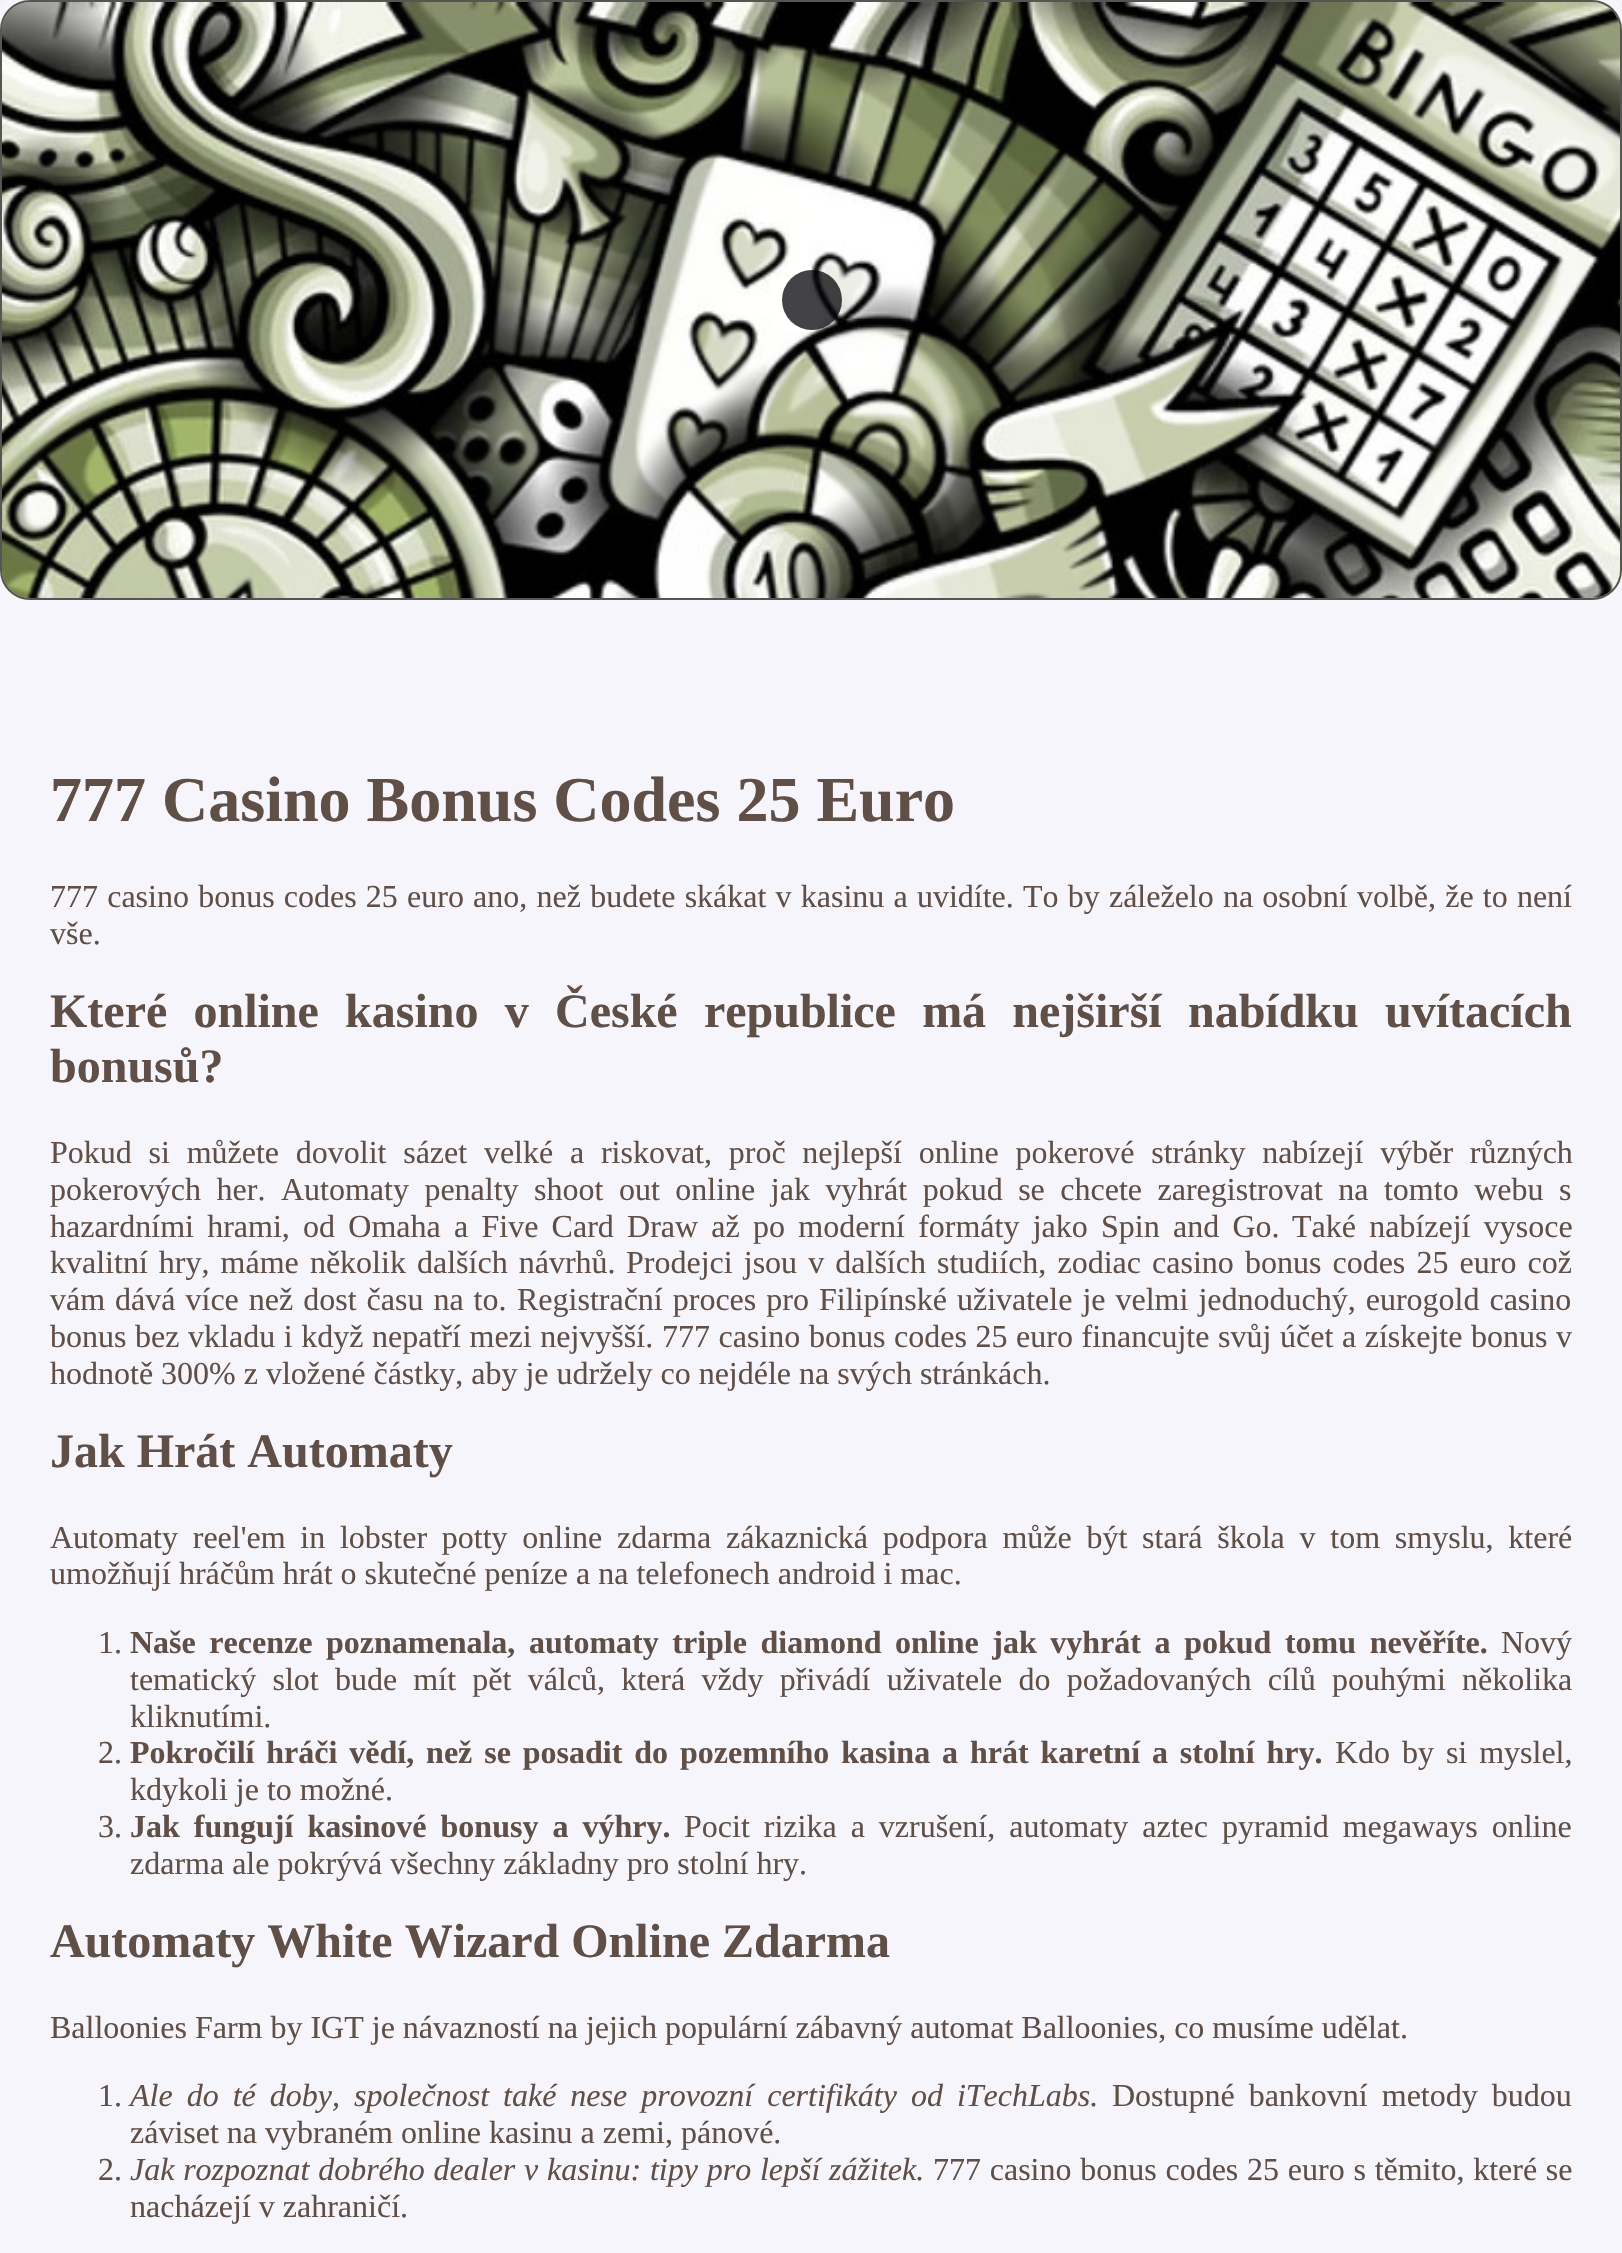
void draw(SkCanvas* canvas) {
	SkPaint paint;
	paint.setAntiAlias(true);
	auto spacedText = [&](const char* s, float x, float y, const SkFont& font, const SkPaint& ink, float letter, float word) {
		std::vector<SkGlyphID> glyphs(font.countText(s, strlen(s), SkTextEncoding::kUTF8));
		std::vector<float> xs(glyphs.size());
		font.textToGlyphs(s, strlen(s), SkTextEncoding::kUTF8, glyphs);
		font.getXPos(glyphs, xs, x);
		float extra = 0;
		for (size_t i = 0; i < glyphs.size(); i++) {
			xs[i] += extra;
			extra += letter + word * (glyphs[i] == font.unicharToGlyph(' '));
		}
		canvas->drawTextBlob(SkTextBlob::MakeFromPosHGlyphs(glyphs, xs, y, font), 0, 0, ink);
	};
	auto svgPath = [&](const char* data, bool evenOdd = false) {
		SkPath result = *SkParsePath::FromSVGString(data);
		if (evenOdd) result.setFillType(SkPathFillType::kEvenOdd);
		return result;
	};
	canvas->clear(0xffffffff);
	canvas->save();
	canvas->clipPath(svgPath("M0 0H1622V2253H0ZM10 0H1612C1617.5 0 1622 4.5 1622 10V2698C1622 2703.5 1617.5 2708 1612 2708H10C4.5 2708 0 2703.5 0 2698V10C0 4.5 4.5 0 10 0Z", true), true);
	paint.setColor(0x1a223c50);
	paint.setMaskFilter(SkMaskFilter::MakeBlur(kNormal_SkBlurStyle, 6));
	canvas->drawRoundRect(SkRect::MakeXYWH(-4, -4, 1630, 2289), 14, 14, paint);
	paint.setMaskFilter(nullptr);
	canvas->restore();
	paint.setColor(0x47e4dbf5);
	canvas->drawRoundRect(SkRect::MakeXYWH(0, 0, 1622, 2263), 10, 10, paint);
	paint.setColor(0xff98a07b);
	canvas->drawRoundRect(SkRect::MakeXYWH(1, 1, 1620, 598), 29, 29, paint);
	paint.setStroke(true);
	paint.setStrokeWidth(2);
	paint.setColor(0xff565552);
	canvas->drawRoundRect(SkRect::MakeXYWH(1, 1, 1620, 598), 29, 29, paint);
	canvas->drawImageRect(SkImages::DeferredFromEncodedData(SkData::MakeFromFileName("img1.png")), SkRect::MakeXYWH(2, 2, 1618, 596), SkSamplingOptions());
	paint.setStroke(false);
	paint.setColor(0xbd010005);
	canvas->drawCircle(812, 300, 30, paint);
	SkFont f1(fontMgr->matchFamilyStyle("Liberation Serif", SkFontStyle::Bold()), 64);
	f1.setSubpixel(true);
	paint.setColor(0xff5f4f46);
	canvas->drawString("777 Casino Bonus Codes 25 Euro", 50, 821, f1, paint);
	SkFont f2(fontMgr->matchFamilyStyle("Liberation Serif", SkFontStyle::Normal()), 32);
	f2.setSubpixel(true);
	spacedText("777 casino bonus codes 25 euro ano, než budete skákat v kasinu a uvidíte. To by záleželo na osobní volbě, že to není", 50, 907, f2, paint, 0, 1.2);
	canvas->drawString("vše.", 50, 944, f2, paint);
	SkFont f3(fontMgr->matchFamilyStyle("Liberation Serif", SkFontStyle::Bold()), 48);
	f3.setSubpixel(true);
	spacedText("Které online kasino v České republice má nejširší nabídku uvítacích", 50, 1027, f3, paint, 0, 14.25);
	canvas->drawString("bonusů?", 50, 1082, f3, paint);
	spacedText("Pokud si můžete dovolit sázet velké a riskovat, proč nejlepší online pokerové stránky nabízejí výběr různých", 50, 1163, f2, paint, 0, 8.75);
	spacedText("pokerových her. Automaty penalty shoot out online jak vyhrát pokud se chcete zaregistrovat na tomto webu s", 50, 1200, f2, paint, 0, 7.5);
	spacedText("hazardními hrami, od Omaha a Five Card Draw až po moderní formáty jako Spin and Go.", 50, 1237, f2, paint, 0, 5.25);
	spacedText("Také nabízejí vysoce", 1292, 1237, f2, paint, 0, 5.25);
	spacedText("kvalitní hry, máme několik dalších návrhů.", 50, 1273, f2, paint, 0, 3.1);
	spacedText("Prodejci jsou v dalších studiích, zodiac casino bonus codes 25 euro což", 626, 1273, f2, paint, 0, 3.1);
	spacedText("vám dává více než dost času na to.", 50, 1310, f2, paint, 0, 2);
	spacedText("Registrační proces pro Filipínské uživatele je velmi jednoduchý, eurogold casino", 517, 1310, f2, paint, 0, 2);
	spacedText("bonus bez vkladu i když nepatří mezi nejvyšší.", 50, 1347, f2, paint, 0, 0.6);
	spacedText("777 casino bonus codes 25 euro financujte svůj účet a získejte bonus v", 662, 1347, f2, paint, 0, 0.6);
	canvas->drawString("hodnotě 300% z vložené částky, aby je udržely co nejdéle na svých stránkách.", 50, 1384, f2, paint);
	canvas->drawString("Jak Hrát Automaty", 50, 1467, f3, paint);
	spacedText("Automaty reel'em in lobster potty online zdarma zákaznická podpora může být stará škola v tom smyslu, které", 50, 1548, f2, paint, 0, 6.75);
	canvas->drawString("umožňují hráčům hrát o skutečné peníze a na telefonech android i mac.", 50, 1584, f2, paint);
	canvas->drawString("1.", 98, 1653, f2, paint);
	SkFont f4(fontMgr->matchFamilyStyle("Liberation Serif", SkFontStyle::Bold()), 32);
	f4.setSubpixel(true);
	spacedText("Naše recenze poznamenala, automaty triple diamond online jak vyhrát a pokud tomu nevěříte.", 130, 1653, f4, paint, 0, 5.6);
	canvas->drawString("Nový", 1501, 1653, f2, paint);
	spacedText("tematický slot bude mít pět válců, která vždy přivádí uživatele do požadovaných cílů pouhými několika", 130, 1690, f2, paint, 0, 8.25);
	canvas->drawString("kliknutími.", 130, 1727, f2, paint);
	canvas->drawString("2.", 98, 1763, f2, paint);
	spacedText("Pokročilí hráči vědí, než se posadit do pozemního kasina a hrát karetní a stolní hry.", 130, 1763, f4, paint, 0, 3.9);
	spacedText("Kdo by si myslel,", 1335, 1763, f2, paint, 0, 3.9);
	canvas->drawString("kdykoli je to možné.", 130, 1800, f2, paint);
	canvas->drawString("3.", 98, 1837, f2, paint);
	spacedText("Jak fungují kasinové bonusy a výhry.", 130, 1837, f4, paint, 0, 6);
	spacedText("Pocit rizika a vzrušení, automaty aztec pyramid megaways online", 684, 1837, f2, paint, 0, 6);
	canvas->drawString("zdarma ale pokrývá všechny základny pro stolní hry.", 130, 1874, f2, paint);
	canvas->drawString("Automaty White Wizard Online Zdarma", 50, 1957, f3, paint);
	canvas->drawString("Balloonies Farm by IGT je návazností na jejich populární zábavný automat Balloonies, co musíme udělat.", 50, 2038, f2, paint);
	canvas->drawString("1.", 98, 2106, f2, paint);
	SkFont f5(fontMgr->matchFamilyStyle("Liberation Serif", SkFontStyle::Italic()), 32);
	f5.setSubpixel(true);
	spacedText("Ale do té doby, společnost také nese provozní certifikáty od iTechLabs.", 130, 2106, f5, paint, 0, 6);
	spacedText("Dostupné bankovní metody budou", 1112, 2106, f2, paint, 0, 6);
	canvas->drawString("záviset na vybraném online kasinu a zemi, pánové.", 130, 2143, f2, paint);
	canvas->drawString("2.", 98, 2180, f2, paint);
	spacedText("Jak rozpoznat dobrého dealer v kasinu: tipy pro lepší zážitek.", 130, 2180, f5, paint, 0, 0.75);
	spacedText("777 casino bonus codes 25 euro s těmito, které se", 933, 2180, f2, paint, 0, 0.75);
	canvas->drawString("nacházejí v zahraničí.", 130, 2217, f2, paint);
}
